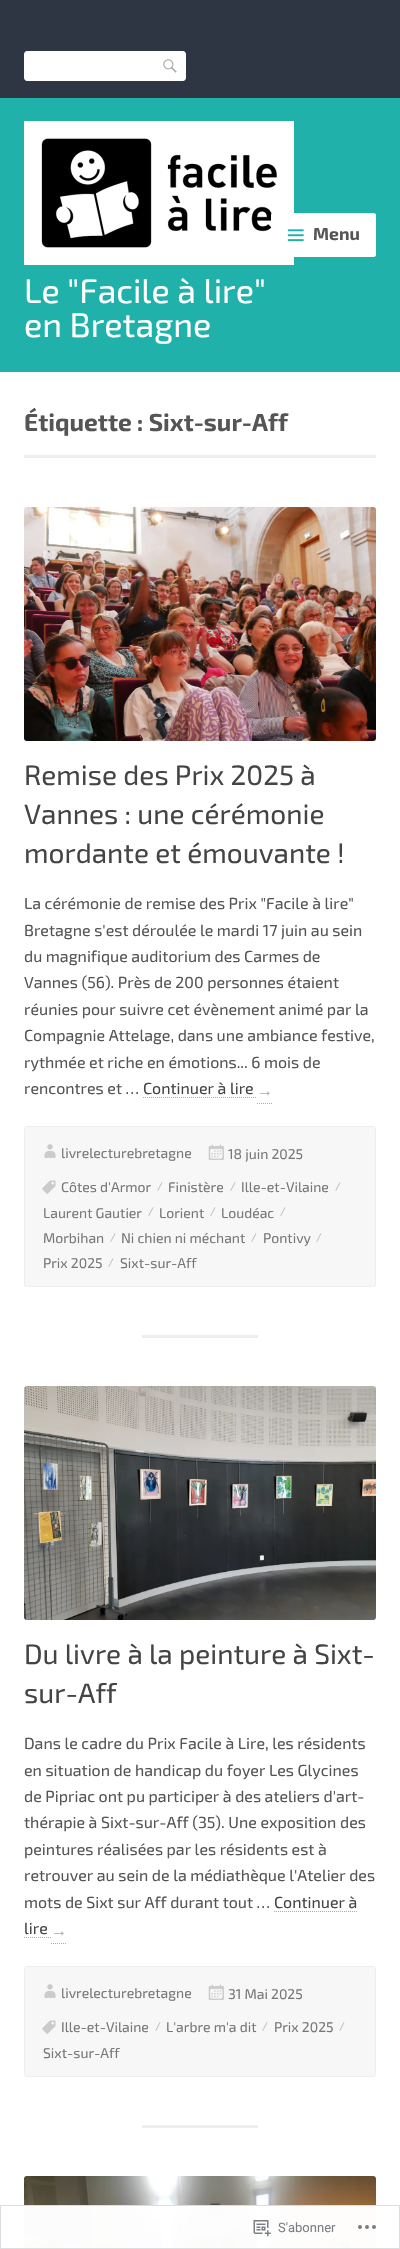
void draw(SkCanvas* canvas) {
	SkPaint paint;
	paint.setAntiAlias(true);
	auto svgPath = [&](const char* data, bool evenOdd = false) {
		SkPath result = *SkParsePath::FromSVGString(data);
		if (evenOdd) result.setFillType(SkPathFillType::kEvenOdd);
		return result;
	};
	canvas->clear(0xffffffff);
	paint.setColor(0xff2d3642);
	canvas->drawRect(SkRect::MakeXYWH(0, 0, 400, 98), paint);
	paint.setColor(0xffffffff);
	canvas->drawPath(svgPath("M27 51H154V81H27C25.5 81 24 79.5 24 78V54C24 52.5 25.5 51 27 51Z"), paint);
	canvas->drawPath(svgPath("M154 51H183C184.5 51 186 52.5 186 54V78C186 79.5 184.5 81 183 81H154Z"), paint);
	canvas->drawImageRect(SkImages::DeferredFromEncodedData(SkData::MakeFromFileName("img1.png")), SkRect::MakeXYWH(163, 59, 14, 14), SkSamplingOptions());
	paint.setColor(0xff20b2aa);
	canvas->drawRect(SkRect::MakeXYWH(0, 98, 400, 274), paint);
	canvas->drawImageRect(SkImages::DeferredFromEncodedData(SkData::MakeFromFileName("img3.png")), SkRect::MakeXYWH(24, 121, 270, 144), SkSamplingOptions());
	paint.setColor(0xffffffff);
	canvas->drawRoundRect(SkRect::MakeXYWH(271, 213, 105, 44), 3, 3, paint);
	paint.setStroke(true);
	paint.setStrokeWidth(2);
	paint.setColor(0xd9ffffff);
	canvas->drawRoundRect(SkRect::MakeXYWH(272, 214, 103, 42), 2, 2, paint);
	canvas->drawImageRect(SkImages::DeferredFromEncodedData(SkData::MakeFromFileName("img2.png")), SkRect::MakeXYWH(287, 229, 17, 13), SkSamplingOptions());
	SkFont f1(fontMgr->matchFamilyStyle("Exo 2", SkFontStyle::Bold()), 17.5);
	f1.setSubpixel(true);
	paint.setStroke(false);
	paint.setColor(0xff555555);
	canvas->drawString("Menu", 313, 240, f1, paint);
	SkFont f2(fontMgr->matchFamilyStyle("Exo 2", SkFontStyle::Normal()), 34);
	f2.setSubpixel(true);
	paint.setColor(0xffffffff);
	canvas->drawString("Le \"Facile à lire\"", 24, 303, f2, paint);
	canvas->drawString("en Bretagne", 24, 337, f2, paint);
	paint.setColor(0xffeeeeee);
	canvas->drawRect(SkRect::MakeXYWH(24, 455, 352, 3), paint);
	SkFont f3(fontMgr->matchFamilyStyle("Exo 2", SkFontStyle::Bold()), 24.5);
	f3.setSubpixel(true);
	paint.setColor(0xff555555);
	canvas->drawString("Étiquette : Sixt-sur-Aff", 24, 431, f3, paint);
	canvas->drawImageRect(SkImages::DeferredFromEncodedData(SkData::MakeFromFileName("img4.png")), SkRect::MakeXYWH(24, 507, 352, 234), SkSamplingOptions());
	SkFont f4(fontMgr->matchFamilyStyle("Exo 2", SkFontStyle::Normal()), 28);
	f4.setSubpixel(true);
	paint.setColor(0xff444444);
	canvas->drawString("Remise des Prix 2025 à", 24, 785, f4, paint);
	canvas->drawString("Vannes : une cérémonie", 24, 824, f4, paint);
	canvas->drawString("mordante et émouvante !", 24, 863, f4, paint);
	SkFont f5(fontMgr->matchFamilyStyle("Exo 2", SkFontStyle::Normal()), 16);
	f5.setSubpixel(true);
	paint.setColor(0xff555555);
	canvas->drawString("La cérémonie de remise des Prix \"Facile à lire\"", 24, 909, f5, paint);
	canvas->drawString("Bretagne s'est déroulée le mardi 17 juin au sein", 24, 936, f5, paint);
	canvas->drawString("du magnifique auditorium des Carmes de", 24, 962, f5, paint);
	canvas->drawString("Vannes (56). Près de 200 personnes étaient", 24, 988, f5, paint);
	canvas->drawString("réunies pour suivre cet évènement animé par la", 24, 1015, f5, paint);
	canvas->drawString("Compagnie Attelage, dans une ambiance festive,", 24, 1041, f5, paint);
	canvas->drawString("rythmée et riche en émotions... 6 mois de", 24, 1068, f5, paint);
	canvas->drawString("rencontres et …", 24, 1094, f5, paint);
	paint.setStroke(true);
	paint.setStrokeWidth(1);
	paint.setColor(0xffaaaaaa);
	paint.setPathEffect(SkDashPathEffect::Make({{1, 1}}, 0));
	canvas->drawPath(svgPath("M143 1097.5H257"), paint);
	paint.setPathEffect(nullptr);
	paint.setPathEffect(SkDashPathEffect::Make({{1, 1}}, 0));
	canvas->drawPath(svgPath("M257 1103.5H273"), paint);
	paint.setPathEffect(nullptr);
	paint.setStroke(false);
	paint.setColor(0xff444444);
	canvas->drawString("Continuer à lire", 143, 1094, f5, paint);
	SkFont f6(fontMgr->matchFamilyStyle("Liberation Sans", SkFontStyle::Normal()), 16);
	f6.setSubpixel(true);
	paint.setColor(0xffaaaaaa);
	canvas->drawString("→", 257, 1096, f6, paint);
	paint.setColor(0xfff7f7f7);
	canvas->drawRoundRect(SkRect::MakeXYWH(24.5, 1126.5, 351, 160), 2.5, 2.5, paint);
	paint.setStroke(true);
	paint.setColor(0xffeeeeee);
	canvas->drawRoundRect(SkRect::MakeXYWH(24.5, 1126.5, 351, 160), 2.5, 2.5, paint);
	canvas->drawImageRect(SkImages::DeferredFromEncodedData(SkData::MakeFromFileName("img5.png")), SkRect::MakeXYWH(44, 1144, 12, 14), SkSamplingOptions());
	SkFont f7(fontMgr->matchFamilyStyle("Exo 2", SkFontStyle::Normal()), 14);
	f7.setSubpixel(true);
	paint.setStroke(false);
	paint.setColor(0xff777777);
	canvas->drawString("livrelecturebretagne", 61, 1158, f7, paint);
	canvas->drawImageRect(SkImages::DeferredFromEncodedData(SkData::MakeFromFileName("img6.png")), SkRect::MakeXYWH(208, 1144, 16, 16), SkSamplingOptions());
	canvas->drawString("18 juin 2025", 228, 1159, f7, paint);
	canvas->drawImageRect(SkImages::DeferredFromEncodedData(SkData::MakeFromFileName("img7.png")), SkRect::MakeXYWH(42, 1180, 14, 14), SkSamplingOptions());
	canvas->drawString("Côtes d'Armor", 61, 1192, f7, paint);
	SkFont f8(fontMgr->matchFamilyStyle("Exo 2", SkFontStyle::Normal()), 11);
	f8.setSubpixel(true);
	paint.setColor(0xffb7b7b7);
	canvas->drawString("/", 157, 1190, f8, paint);
	paint.setColor(0xff777777);
	canvas->drawString("Finistère", 168, 1192, f7, paint);
	paint.setColor(0xffb7b7b7);
	canvas->drawString("/", 230, 1190, f8, paint);
	paint.setColor(0xff777777);
	canvas->drawString("Ille-et-Vilaine", 241, 1192, f7, paint);
	paint.setColor(0xffb7b7b7);
	canvas->drawString("/", 335, 1190, f8, paint);
	paint.setColor(0xff777777);
	canvas->drawString("Laurent Gautier", 43, 1218, f7, paint);
	paint.setColor(0xffb7b7b7);
	canvas->drawString("/", 148, 1215, f8, paint);
	paint.setColor(0xff777777);
	canvas->drawString("Lorient", 159, 1218, f7, paint);
	paint.setColor(0xffb7b7b7);
	canvas->drawString("/", 210, 1215, f8, paint);
	paint.setColor(0xff777777);
	canvas->drawString("Loudéac", 221, 1218, f7, paint);
	paint.setColor(0xffb7b7b7);
	canvas->drawString("/", 280, 1215, f8, paint);
	paint.setColor(0xff777777);
	canvas->drawString("Morbihan", 43, 1243, f7, paint);
	paint.setColor(0xffb7b7b7);
	canvas->drawString("/", 110, 1241, f8, paint);
	paint.setColor(0xff777777);
	canvas->drawString("Ni chien ni méchant", 121, 1243, f7, paint);
	paint.setColor(0xffb7b7b7);
	canvas->drawString("/", 251, 1241, f8, paint);
	paint.setColor(0xff777777);
	canvas->drawString("Pontivy", 263, 1243, f7, paint);
	paint.setColor(0xffb7b7b7);
	canvas->drawString("/", 316, 1241, f8, paint);
	paint.setColor(0xff777777);
	canvas->drawString("Prix 2025", 43, 1268, f7, paint);
	paint.setColor(0xffb7b7b7);
	canvas->drawString("/", 108, 1266, f8, paint);
	paint.setColor(0xff777777);
	canvas->drawString("Sixt-sur-Aff", 120, 1268, f7, paint);
	paint.setColor(0xffeeeeee);
	canvas->drawRect(SkRect::MakeXYWH(142, 1335, 116, 3), paint);
	canvas->drawImageRect(SkImages::DeferredFromEncodedData(SkData::MakeFromFileName("img8.png")), SkRect::MakeXYWH(24, 1386, 352, 234), SkSamplingOptions());
	paint.setColor(0xff444444);
	canvas->drawString("Du livre à la peinture à Sixt-", 24, 1664, f4, paint);
	canvas->drawString("sur-Aff", 24, 1703, f4, paint);
	paint.setColor(0xff555555);
	canvas->drawString("Dans le cadre du Prix Facile à Lire, les résidents", 24, 1749, f5, paint);
	canvas->drawString("en situation de handicap du foyer Les Glycines", 24, 1776, f5, paint);
	canvas->drawString("de Pipriac ont pu participer à des ateliers d'art-", 24, 1802, f5, paint);
	canvas->drawString("thérapie à Sixt-sur-Aff (35). Une exposition des", 24, 1828, f5, paint);
	canvas->drawString("peintures réalisées par les résidents est à", 24, 1855, f5, paint);
	canvas->drawString("retrouver au sein de la médiathèque l'Atelier des", 24, 1881, f5, paint);
	canvas->drawString("mots de Sixt sur Aff durant tout …", 24, 1908, f5, paint);
	paint.setStroke(true);
	paint.setColor(0xffaaaaaa);
	paint.setPathEffect(SkDashPathEffect::Make({{1, 1}}, 0));
	canvas->drawPath(svgPath("M274 1911.5H357"), paint);
	paint.setPathEffect(nullptr);
	paint.setPathEffect(SkDashPathEffect::Make({{1, 1}}, 0));
	canvas->drawPath(svgPath("M24 1937.5H51M51 1943.5H67"), paint);
	paint.setPathEffect(nullptr);
	paint.setStroke(false);
	paint.setColor(0xff444444);
	canvas->drawString("Continuer à", 274, 1908, f5, paint);
	canvas->drawString("lire", 24, 1934, f5, paint);
	paint.setColor(0xffaaaaaa);
	canvas->drawString("→", 51, 1936, f6, paint);
	paint.setColor(0xfff7f7f7);
	canvas->drawRoundRect(SkRect::MakeXYWH(24.5, 1966.5, 351, 110), 2.5, 2.5, paint);
	paint.setStroke(true);
	paint.setColor(0xffeeeeee);
	canvas->drawRoundRect(SkRect::MakeXYWH(24.5, 1966.5, 351, 110), 2.5, 2.5, paint);
	canvas->drawImageRect(SkImages::DeferredFromEncodedData(SkData::MakeFromFileName("img5.png")), SkRect::MakeXYWH(44, 1984, 12, 14), SkSamplingOptions());
	paint.setStroke(false);
	paint.setColor(0xff777777);
	canvas->drawString("livrelecturebretagne", 61, 1998, f7, paint);
	canvas->drawImageRect(SkImages::DeferredFromEncodedData(SkData::MakeFromFileName("img6.png")), SkRect::MakeXYWH(208, 1984, 16, 16), SkSamplingOptions());
	canvas->drawString("31 Mai 2025", 228, 1999, f7, paint);
	canvas->drawImageRect(SkImages::DeferredFromEncodedData(SkData::MakeFromFileName("img7.png")), SkRect::MakeXYWH(42, 2020, 14, 14), SkSamplingOptions());
	canvas->drawString("Ille-et-Vilaine", 61, 2032, f7, paint);
	paint.setColor(0xffb7b7b7);
	canvas->drawString("/", 155, 2030, f8, paint);
	paint.setColor(0xff777777);
	canvas->drawString("L'arbre m'a dit", 166, 2032, f7, paint);
	paint.setColor(0xffb7b7b7);
	canvas->drawString("/", 262, 2030, f8, paint);
	paint.setColor(0xff777777);
	canvas->drawString("Prix 2025", 274, 2032, f7, paint);
	paint.setColor(0xffb7b7b7);
	canvas->drawString("/", 339, 2030, f8, paint);
	paint.setColor(0xff777777);
	canvas->drawString("Sixt-sur-Aff", 43, 2058, f7, paint);
	paint.setColor(0xffeeeeee);
	canvas->drawRect(SkRect::MakeXYWH(142, 2125, 116, 3), paint);
	canvas->drawImageRect(SkImages::DeferredFromEncodedData(SkData::MakeFromFileName("img9.png")), SkRect::MakeXYWH(24, 2176, 352, 73), SkSamplingOptions());
	paint.setColor(0xfaffffff);
	canvas->drawRect(SkRect::MakeXYWH(24, 2205, 352, 44), paint);
	paint.setStroke(true);
	paint.setColor(0xfadcdcde);
	canvas->drawRect(SkRect::MakeXYWH(0.5, 2205.5, 399, 43), paint);
	canvas->drawImageRect(SkImages::DeferredFromEncodedData(SkData::MakeFromFileName("img10.png")), SkRect::MakeXYWH(253, 2220, 18, 17), SkSamplingOptions());
	SkFont f9(fontMgr->matchFamilyStyle("Roboto", SkFontStyle::Normal()), 13);
	f9.setSubpixel(true);
	paint.setStroke(false);
	paint.setColor(0xff7b7f84);
	canvas->drawString("S'abonner", 278, 2232, f9, paint);
	canvas->drawImageRect(SkImages::DeferredFromEncodedData(SkData::MakeFromFileName("img11.png")), SkRect::MakeXYWH(358, 2225, 18, 4), SkSamplingOptions());
}
